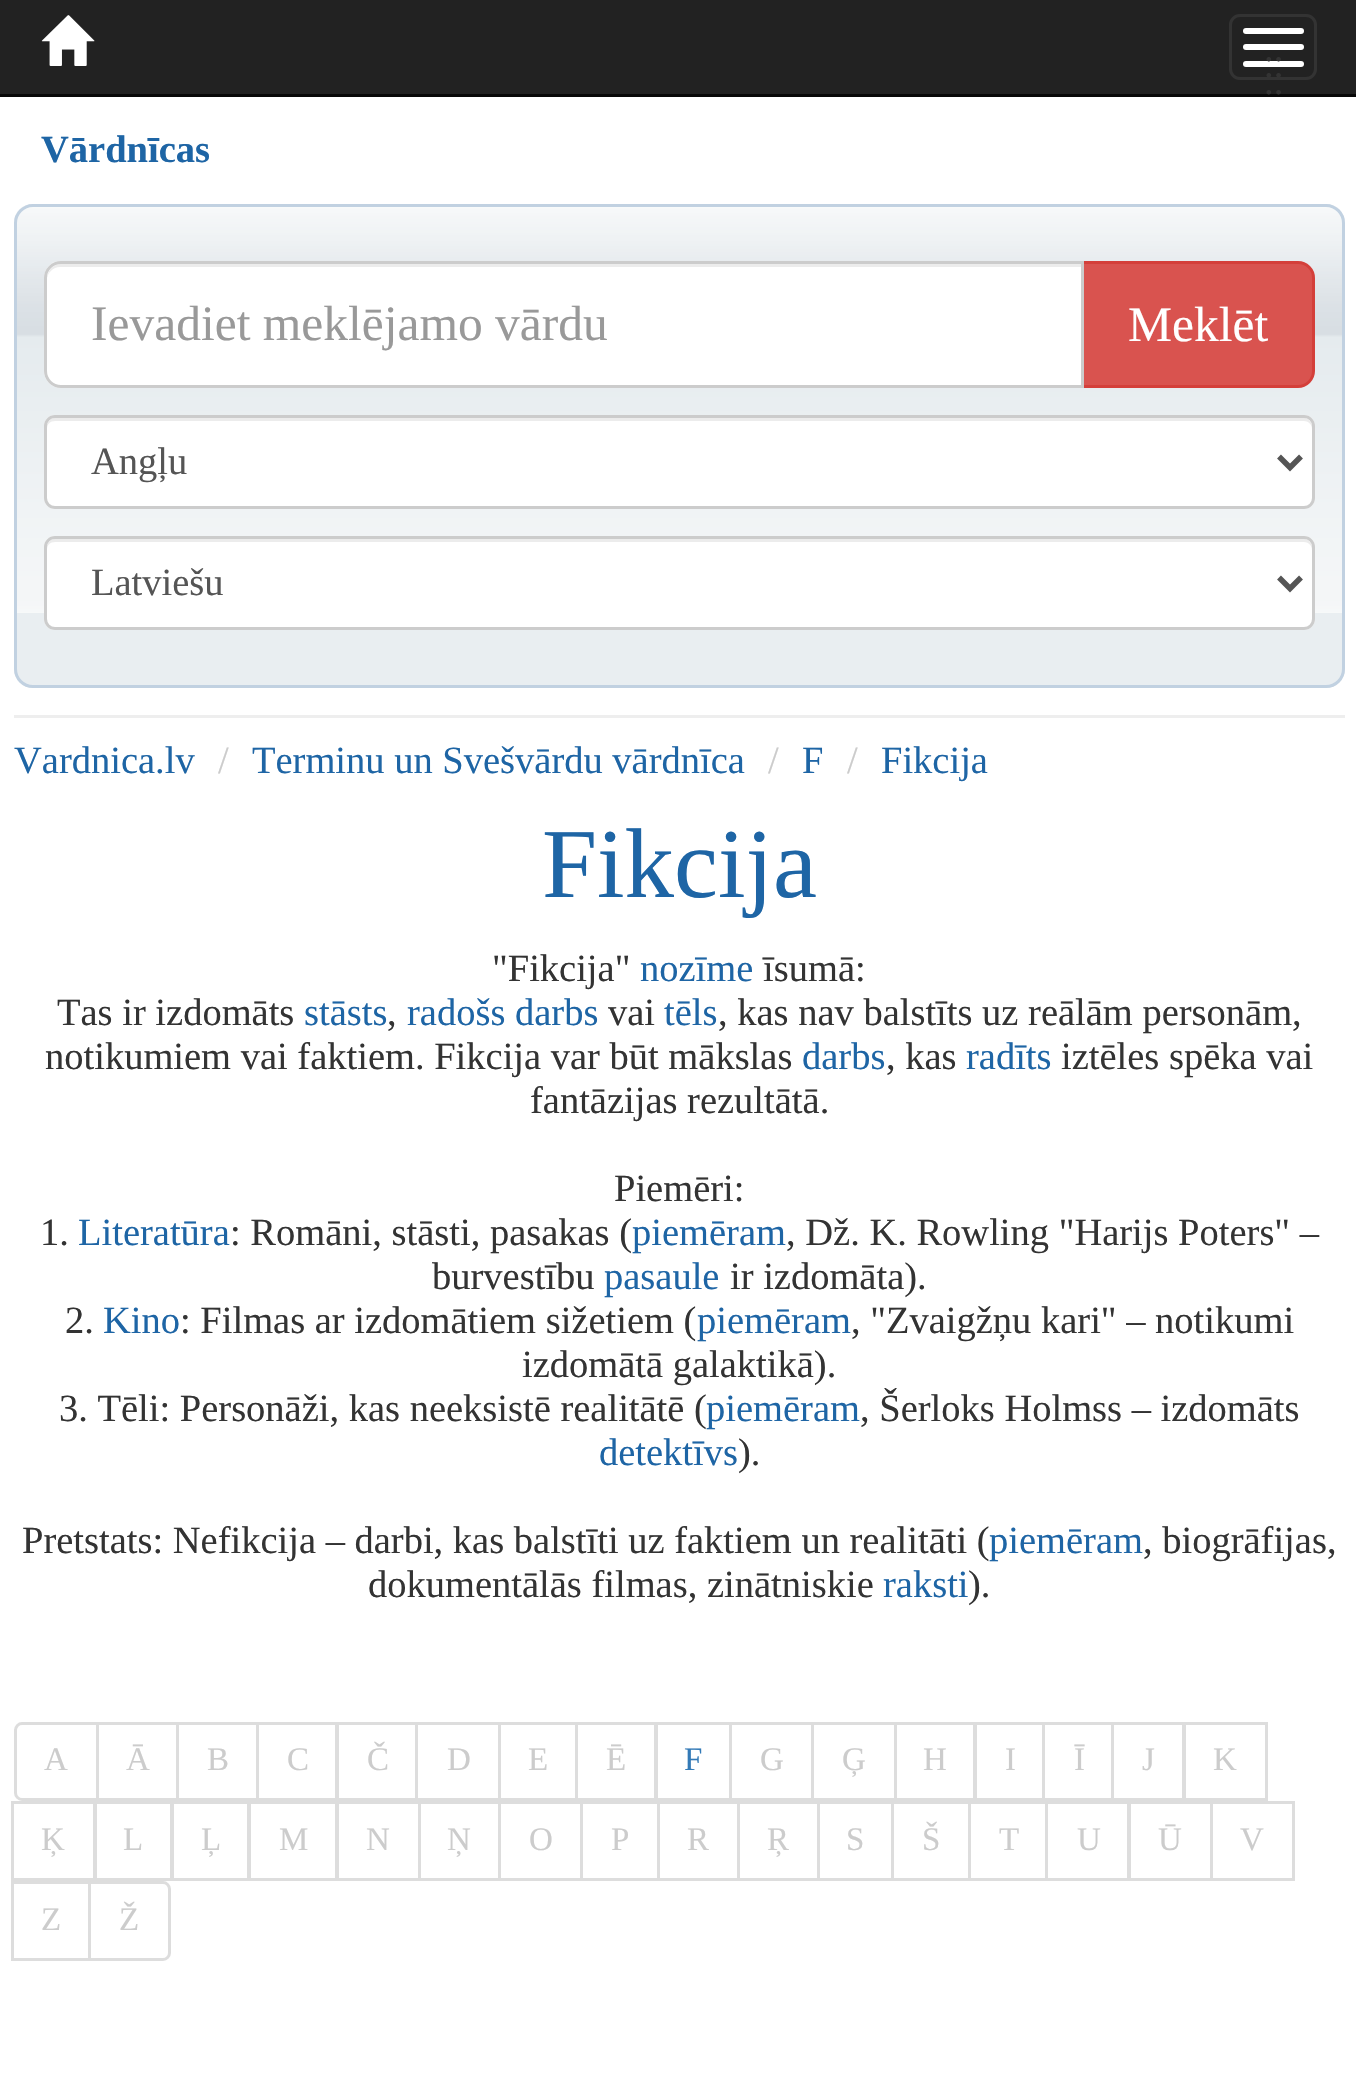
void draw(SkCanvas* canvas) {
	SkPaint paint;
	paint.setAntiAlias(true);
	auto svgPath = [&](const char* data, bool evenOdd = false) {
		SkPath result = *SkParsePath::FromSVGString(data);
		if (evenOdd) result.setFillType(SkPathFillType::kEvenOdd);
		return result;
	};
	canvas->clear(0xffffffff);
	paint.setColor(0xff222222);
	canvas->drawRect(SkRect::MakeXYWH(0, 0, 1356, 94), paint);
	paint.setColor(0xff080808);
	canvas->drawRect(SkRect::MakeXYWH(0, 94, 1356, 3), paint);
	canvas->drawImageRect(SkImages::DeferredFromEncodedData(SkData::MakeFromFileName("img1.png")), SkRect::MakeXYWH(41, 15, 54, 51), SkSamplingOptions());
	paint.setStroke(true);
	paint.setStrokeWidth(3);
	paint.setColor(0xff333333);
	canvas->drawRoundRect(SkRect::MakeXYWH(1230.5, 15.5, 85, 63), 9.5, 9.5, paint);
	paint.setStroke(false);
	paint.setColor(0xffffffff);
	canvas->drawRoundRect(SkRect::MakeXYWH(1243, 28, 61, 6), 3, 3, paint);
	canvas->drawRoundRect(SkRect::MakeXYWH(1243, 61, 61, 6), 3, 3, paint);
	SkFont f1(fontMgr->matchFamilyStyle("Liberation Serif", SkFontStyle::Normal()), 38.5);
	f1.setSubpixel(true);
	paint.setColor(0xff333333);
	canvas->drawString("..", 1264, 61, f1, paint);
	paint.setColor(0xffffffff);
	canvas->drawRoundRect(SkRect::MakeXYWH(1243, 44, 61, 6), 3, 3, paint);
	paint.setColor(0xff333333);
	canvas->drawString("..", 1264, 77, f1, paint);
	canvas->drawString("..", 1264, 94, f1, paint);
	SkFont f2(fontMgr->matchFamilyStyle("Liberation Serif", SkFontStyle::Bold()), 38.5);
	f2.setSubpixel(true);
	paint.setColor(0xff1e65a5);
	canvas->drawString("Vārdnīcas", 41, 162, f2, paint);
	paint.setColor(0xffe9eef1);
	canvas->drawRoundRect(SkRect::MakeXYWH(14, 204, 1331, 484), 19, 19, paint);
	canvas->drawImageRect(SkImages::DeferredFromEncodedData(SkData::MakeFromFileName("img2.png")), SkRect::MakeXYWH(14, 206, 1331, 407), SkSamplingOptions());
	paint.setStroke(true);
	paint.setColor(0xffc1d1e1);
	canvas->drawRoundRect(SkRect::MakeXYWH(15.5, 205.5, 1328, 481), 17.5, 17.5, paint);
	paint.setStroke(false);
	paint.setColor(0xffd9534f);
	canvas->drawPath(svgPath("M1082.5 262.5H1298C1306.5 262.5 1313.5 269.5 1313.5 278V371C1313.5 379.5 1306.5 386.5 1298 386.5H1082.5Z"), paint);
	paint.setStroke(true);
	paint.setColor(0xffd43f3a);
	canvas->drawPath(svgPath("M1082.5 262.5H1298C1306.5 262.5 1313.5 269.5 1313.5 278V371C1313.5 379.5 1306.5 386.5 1298 386.5H1082.5Z"), paint);
	paint.setStroke(false);
	paint.setColor(0xffffffff);
	canvas->drawPath(svgPath("M61 261H1084V388H61C51.5 388 44 380.5 44 371V278C44 268.5 51.5 261 61 261Z"), paint);
	paint.setColor(0xffececec);
	canvas->drawPath(svgPath("M60 267H1081V264H61C52 264 47 272 47 280C47 273 53 267 60 267Z"), paint);
	paint.setStroke(true);
	paint.setColor(0xffcccccc);
	canvas->drawPath(svgPath("M61 262.5H1082.5V386.5H61C52.5 386.5 45.5 379.5 45.5 371V278C45.5 269.5 52.5 262.5 61 262.5Z"), paint);
	SkFont f3(fontMgr->matchFamilyStyle("Liberation Serif", SkFontStyle::Normal()), 49.5);
	f3.setSubpixel(true);
	paint.setStroke(false);
	paint.setColor(0xff999999);
	canvas->drawString("Ievadiet meklējamo vārdu", 91, 340, f3, paint);
	paint.setColor(0xffffffff);
	canvas->drawString("Meklēt", 1128, 341, f3, paint);
	canvas->drawRoundRect(SkRect::MakeXYWH(44, 415, 1271, 94), 11, 11, paint);
	paint.setColor(0xffececec);
	canvas->drawPath(svgPath("M55 421H1304C1308 421 1312 424 1312 429V426C1312 422 1308 418 1304 418H55C51 418 47 422 47 426V429C47 424 50 421 55 421Z"), paint);
	paint.setStroke(true);
	paint.setColor(0xffcccccc);
	canvas->drawRoundRect(SkRect::MakeXYWH(45.5, 416.5, 1268, 91), 9.5, 9.5, paint);
	paint.setStrokeWidth(5.5);
	paint.setColor(0xff555555);
	canvas->drawPath(svgPath("M1279 456.5L1290 467.5L1301 456.5"), paint);
	paint.setStroke(false);
	canvas->drawString("Angļu", 91, 474, f1, paint);
	paint.setColor(0xffffffff);
	canvas->drawRoundRect(SkRect::MakeXYWH(44, 536, 1271, 94), 11, 11, paint);
	paint.setColor(0xffececec);
	canvas->drawPath(svgPath("M55 542H1304C1308 542 1312 545 1312 550V547C1312 543 1308 539 1304 539H55C51 539 47 543 47 547V550C47 545 50 542 55 542Z"), paint);
	paint.setStroke(true);
	paint.setStrokeWidth(3);
	paint.setColor(0xffcccccc);
	canvas->drawRoundRect(SkRect::MakeXYWH(45.5, 537.5, 1268, 91), 9.5, 9.5, paint);
	paint.setStrokeWidth(5.5);
	paint.setColor(0xff555555);
	canvas->drawPath(svgPath("M1279 577.5L1290 588.5L1301 577.5"), paint);
	paint.setStroke(false);
	canvas->drawString("Latviešu", 91, 595, f1, paint);
	paint.setColor(0xffeeeeee);
	canvas->drawRect(SkRect::MakeXYWH(14, 715, 1331, 3), paint);
	paint.setColor(0xff1e65a5);
	canvas->drawString("Vardnica.lv", 14, 773, f1, paint);
	paint.setColor(0xffcccccc);
	canvas->drawString("/", 218, 773, f1, paint);
	paint.setColor(0xff1e65a5);
	canvas->drawString("Terminu un Svešvārdu vārdnīca", 252, 773, f1, paint);
	paint.setColor(0xffcccccc);
	canvas->drawString("/", 768, 773, f1, paint);
	paint.setColor(0xff1e65a5);
	canvas->drawString("F", 802, 773, f1, paint);
	paint.setColor(0xffcccccc);
	canvas->drawString("/", 847, 773, f1, paint);
	paint.setColor(0xff1e65a5);
	canvas->drawString("Fikcija", 881, 773, f1, paint);
	SkFont f4(fontMgr->matchFamilyStyle("Liberation Serif", SkFontStyle::Normal()), 99);
	f4.setSubpixel(true);
	canvas->drawString("Fikcija", 542, 897, f4, paint);
	paint.setColor(0xff333333);
	canvas->drawString("\"Fikcija\"", 492, 981, f1, paint);
	paint.setColor(0xff1e65a5);
	canvas->drawString("nozīme", 640, 981, f1, paint);
	paint.setColor(0xff333333);
	canvas->drawString("īsumā:", 763, 981, f1, paint);
	canvas->drawString("Tas ir izdomāts", 57, 1025, f1, paint);
	paint.setColor(0xff1e65a5);
	canvas->drawString("stāsts", 304, 1025, f1, paint);
	paint.setColor(0xff333333);
	canvas->drawString(",", 387, 1025, f1, paint);
	paint.setColor(0xff1e65a5);
	canvas->drawString("radošs darbs", 407, 1025, f1, paint);
	paint.setColor(0xff333333);
	canvas->drawString("vai", 608, 1025, f1, paint);
	paint.setColor(0xff1e65a5);
	canvas->drawString("tēls", 664, 1025, f1, paint);
	paint.setColor(0xff333333);
	canvas->drawString(", kas nav balstīts uz reālām personām,", 718, 1025, f1, paint);
	canvas->drawString("notikumiem vai faktiem. Fikcija var būt mākslas", 45, 1069, f1, paint);
	paint.setColor(0xff1e65a5);
	canvas->drawString("darbs", 802, 1069, f1, paint);
	paint.setColor(0xff333333);
	canvas->drawString(", kas", 886, 1069, f1, paint);
	paint.setColor(0xff1e65a5);
	canvas->drawString("radīts", 966, 1069, f1, paint);
	paint.setColor(0xff333333);
	canvas->drawString("iztēles spēka vai", 1061, 1069, f1, paint);
	canvas->drawString("fantāzijas rezultātā.", 530, 1113, f1, paint);
	canvas->drawString("Piemēri:", 614, 1201, f1, paint);
	canvas->drawString("1.", 40, 1245, f1, paint);
	paint.setColor(0xff1e65a5);
	canvas->drawString("Literatūra", 78, 1245, f1, paint);
	paint.setColor(0xff333333);
	canvas->drawString(": Romāni, stāsti, pasakas (", 230, 1245, f1, paint);
	paint.setColor(0xff1e65a5);
	canvas->drawString("piemēram", 632, 1245, f1, paint);
	paint.setColor(0xff333333);
	canvas->drawString(", Dž. K. Rowling \"Harijs Poters\" –", 786, 1245, f1, paint);
	canvas->drawString("burvestību", 432, 1289, f1, paint);
	paint.setColor(0xff1e65a5);
	canvas->drawString("pasaule", 604, 1289, f1, paint);
	paint.setColor(0xff333333);
	canvas->drawString("ir izdomāta).", 730, 1289, f1, paint);
	canvas->drawString("2.", 65, 1333, f1, paint);
	paint.setColor(0xff1e65a5);
	canvas->drawString("Kino", 103, 1333, f1, paint);
	paint.setColor(0xff333333);
	canvas->drawString(": Filmas ar izdomātiem sižetiem (", 180, 1333, f1, paint);
	paint.setColor(0xff1e65a5);
	canvas->drawString("piemēram", 697, 1333, f1, paint);
	paint.setColor(0xff333333);
	canvas->drawString(", \"Zvaigžņu kari\" – notikumi", 851, 1333, f1, paint);
	canvas->drawString("izdomātā galaktikā).", 522, 1377, f1, paint);
	canvas->drawString("3. Tēli: Personāži, kas neeksistē realitātē (", 59, 1421, f1, paint);
	paint.setColor(0xff1e65a5);
	canvas->drawString("piemēram", 706, 1421, f1, paint);
	paint.setColor(0xff333333);
	canvas->drawString(", Šerloks Holmss – izdomāts", 860, 1421, f1, paint);
	paint.setColor(0xff1e65a5);
	canvas->drawString("detektīvs", 599, 1465, f1, paint);
	paint.setColor(0xff333333);
	canvas->drawString(").", 738, 1465, f1, paint);
	canvas->drawString("Pretstats: Nefikcija – darbi, kas balstīti uz faktiem un realitāti (", 22, 1553, f1, paint);
	paint.setColor(0xff1e65a5);
	canvas->drawString("piemēram", 989, 1553, f1, paint);
	paint.setColor(0xff333333);
	canvas->drawString(", biogrāfijas,", 1143, 1553, f1, paint);
	canvas->drawString("dokumentālās filmas, zinātniskie", 368, 1597, f1, paint);
	paint.setColor(0xff1e65a5);
	canvas->drawString("raksti", 883, 1597, f1, paint);
	paint.setColor(0xff333333);
	canvas->drawString(").", 968, 1597, f1, paint);
	paint.setStroke(true);
	paint.setStrokeWidth(3);
	paint.setColor(0xffdddddd);
	canvas->drawPath(svgPath("M22 1723.5H97.5V1799.5H22C18.5 1799.5 15.5 1796.5 15.5 1793V1730C15.5 1726.5 18.5 1723.5 22 1723.5Z"), paint);
	SkFont f5(fontMgr->matchFamilyStyle("Liberation Serif", SkFontStyle::Normal()), 33);
	f5.setSubpixel(true);
	paint.setStroke(false);
	paint.setColor(0xffcccccc);
	canvas->drawString("A", 44, 1770, f5, paint);
	paint.setStroke(true);
	paint.setColor(0xffdddddd);
	canvas->drawRect(SkRect::MakeXYWH(97.5, 1723.5, 80, 76), paint);
	paint.setStroke(false);
	paint.setColor(0xffcccccc);
	canvas->drawString("Ā", 126, 1770, f5, paint);
	paint.setStroke(true);
	paint.setColor(0xffdddddd);
	canvas->drawRect(SkRect::MakeXYWH(177.5, 1723.5, 80, 76), paint);
	paint.setStroke(false);
	paint.setColor(0xffcccccc);
	canvas->drawString("B", 207, 1770, f5, paint);
	paint.setStroke(true);
	paint.setColor(0xffdddddd);
	canvas->drawRect(SkRect::MakeXYWH(257.5, 1723.5, 79, 76), paint);
	paint.setStroke(false);
	paint.setColor(0xffcccccc);
	canvas->drawString("C", 287, 1770, f5, paint);
	paint.setStroke(true);
	paint.setColor(0xffdddddd);
	canvas->drawRect(SkRect::MakeXYWH(337.5, 1723.5, 79, 76), paint);
	paint.setStroke(false);
	paint.setColor(0xffcccccc);
	canvas->drawString("Č", 367, 1770, f5, paint);
	paint.setStroke(true);
	paint.setColor(0xffdddddd);
	canvas->drawRect(SkRect::MakeXYWH(416.5, 1723.5, 83, 76), paint);
	paint.setStroke(false);
	paint.setColor(0xffcccccc);
	canvas->drawString("D", 447, 1770, f5, paint);
	paint.setStroke(true);
	paint.setColor(0xffdddddd);
	canvas->drawRect(SkRect::MakeXYWH(499.5, 1723.5, 77, 76), paint);
	paint.setStroke(false);
	paint.setColor(0xffcccccc);
	canvas->drawString("E", 528, 1770, f5, paint);
	paint.setStroke(true);
	paint.setColor(0xffdddddd);
	canvas->drawRect(SkRect::MakeXYWH(576.5, 1723.5, 79, 76), paint);
	paint.setStroke(false);
	paint.setColor(0xffcccccc);
	canvas->drawString("Ē", 606, 1770, f5, paint);
	paint.setStroke(true);
	paint.setColor(0xffdddddd);
	canvas->drawRect(SkRect::MakeXYWH(656.5, 1723.5, 74, 76), paint);
	paint.setStroke(false);
	paint.setColor(0xff337ab7);
	canvas->drawString("F", 684, 1770, f5, paint);
	paint.setStroke(true);
	paint.setColor(0xffdddddd);
	canvas->drawRect(SkRect::MakeXYWH(730.5, 1723.5, 82, 76), paint);
	paint.setStroke(false);
	paint.setColor(0xffcccccc);
	canvas->drawString("G", 760, 1770, f5, paint);
	paint.setStroke(true);
	paint.setColor(0xffdddddd);
	canvas->drawRect(SkRect::MakeXYWH(812.5, 1723.5, 83, 76), paint);
	paint.setStroke(false);
	paint.setColor(0xffcccccc);
	canvas->drawString("Ģ", 842, 1770, f5, paint);
	paint.setStroke(true);
	paint.setColor(0xffdddddd);
	canvas->drawRect(SkRect::MakeXYWH(895.5, 1723.5, 79, 76), paint);
	paint.setStroke(false);
	paint.setColor(0xffcccccc);
	canvas->drawString("H", 923, 1770, f5, paint);
	paint.setStroke(true);
	paint.setColor(0xffdddddd);
	canvas->drawRect(SkRect::MakeXYWH(975.5, 1723.5, 68, 76), paint);
	paint.setStroke(false);
	paint.setColor(0xffcccccc);
	canvas->drawString("I", 1005, 1770, f5, paint);
	paint.setStroke(true);
	paint.setColor(0xffdddddd);
	canvas->drawRect(SkRect::MakeXYWH(1043.5, 1723.5, 69, 76), paint);
	paint.setStroke(false);
	paint.setColor(0xffcccccc);
	canvas->drawString("Ī", 1074, 1770, f5, paint);
	paint.setStroke(true);
	paint.setColor(0xffdddddd);
	canvas->drawRect(SkRect::MakeXYWH(1112.5, 1723.5, 71, 76), paint);
	paint.setStroke(false);
	paint.setColor(0xffcccccc);
	canvas->drawString("J", 1142, 1770, f5, paint);
	paint.setStroke(true);
	paint.setColor(0xffdddddd);
	canvas->drawRect(SkRect::MakeXYWH(1184.5, 1723.5, 82, 76), paint);
	paint.setStroke(false);
	paint.setColor(0xffcccccc);
	canvas->drawString("K", 1213, 1770, f5, paint);
	paint.setStroke(true);
	paint.setColor(0xffdddddd);
	canvas->drawRect(SkRect::MakeXYWH(12.5, 1802.5, 82, 77), paint);
	paint.setStroke(false);
	paint.setColor(0xffcccccc);
	canvas->drawString("Ķ", 41, 1850, f5, paint);
	paint.setStroke(true);
	paint.setColor(0xffdddddd);
	canvas->drawRect(SkRect::MakeXYWH(95.5, 1802.5, 76, 77), paint);
	paint.setStroke(false);
	paint.setColor(0xffcccccc);
	canvas->drawString("L", 123, 1850, f5, paint);
	paint.setStroke(true);
	paint.setColor(0xffdddddd);
	canvas->drawRect(SkRect::MakeXYWH(172.5, 1802.5, 76, 77), paint);
	paint.setStroke(false);
	paint.setColor(0xffcccccc);
	canvas->drawString("Ļ", 201, 1850, f5, paint);
	paint.setStroke(true);
	paint.setColor(0xffdddddd);
	canvas->drawRect(SkRect::MakeXYWH(249.5, 1802.5, 87, 77), paint);
	paint.setStroke(false);
	paint.setColor(0xffcccccc);
	canvas->drawString("M", 279, 1850, f5, paint);
	paint.setStroke(true);
	paint.setColor(0xffdddddd);
	canvas->drawRect(SkRect::MakeXYWH(337.5, 1802.5, 82, 77), paint);
	paint.setStroke(false);
	paint.setColor(0xffcccccc);
	canvas->drawString("N", 366, 1850, f5, paint);
	paint.setStroke(true);
	paint.setColor(0xffdddddd);
	canvas->drawRect(SkRect::MakeXYWH(419.5, 1802.5, 80, 77), paint);
	paint.setStroke(false);
	paint.setColor(0xffcccccc);
	canvas->drawString("Ņ", 447, 1850, f5, paint);
	paint.setStroke(true);
	paint.setColor(0xffdddddd);
	canvas->drawRect(SkRect::MakeXYWH(499.5, 1802.5, 82, 77), paint);
	paint.setStroke(false);
	paint.setColor(0xffcccccc);
	canvas->drawString("O", 529, 1850, f5, paint);
	paint.setStroke(true);
	paint.setColor(0xffdddddd);
	canvas->drawRect(SkRect::MakeXYWH(581.5, 1802.5, 77, 77), paint);
	paint.setStroke(false);
	paint.setColor(0xffcccccc);
	canvas->drawString("P", 611, 1850, f5, paint);
	paint.setStroke(true);
	paint.setColor(0xffdddddd);
	canvas->drawRect(SkRect::MakeXYWH(658.5, 1802.5, 80, 77), paint);
	paint.setStroke(false);
	paint.setColor(0xffcccccc);
	canvas->drawString("R", 687, 1850, f5, paint);
	paint.setStroke(true);
	paint.setColor(0xffdddddd);
	canvas->drawRect(SkRect::MakeXYWH(738.5, 1802.5, 80, 77), paint);
	paint.setStroke(false);
	paint.setColor(0xffcccccc);
	canvas->drawString("Ŗ", 767, 1850, f5, paint);
	paint.setStroke(true);
	paint.setColor(0xffdddddd);
	canvas->drawRect(SkRect::MakeXYWH(818.5, 1802.5, 74, 77), paint);
	paint.setStroke(false);
	paint.setColor(0xffcccccc);
	canvas->drawString("S", 846, 1850, f5, paint);
	paint.setStroke(true);
	paint.setColor(0xffdddddd);
	canvas->drawRect(SkRect::MakeXYWH(892.5, 1802.5, 77, 77), paint);
	paint.setStroke(false);
	paint.setColor(0xffcccccc);
	canvas->drawString("Š", 922, 1850, f5, paint);
	paint.setStroke(true);
	paint.setColor(0xffdddddd);
	canvas->drawRect(SkRect::MakeXYWH(969.5, 1802.5, 77, 77), paint);
	paint.setStroke(false);
	paint.setColor(0xffcccccc);
	canvas->drawString("T", 999, 1850, f5, paint);
	paint.setStroke(true);
	paint.setColor(0xffdddddd);
	canvas->drawRect(SkRect::MakeXYWH(1046.5, 1802.5, 82, 77), paint);
	paint.setStroke(false);
	paint.setColor(0xffcccccc);
	canvas->drawString("U", 1077, 1850, f5, paint);
	paint.setStroke(true);
	paint.setColor(0xffdddddd);
	canvas->drawRect(SkRect::MakeXYWH(1129.5, 1802.5, 82, 77), paint);
	paint.setStroke(false);
	paint.setColor(0xffcccccc);
	canvas->drawString("Ū", 1158, 1850, f5, paint);
	paint.setStroke(true);
	paint.setColor(0xffdddddd);
	canvas->drawRect(SkRect::MakeXYWH(1211.5, 1802.5, 82, 77), paint);
	paint.setStroke(false);
	paint.setColor(0xffcccccc);
	canvas->drawString("V", 1240, 1850, f5, paint);
	paint.setStroke(true);
	paint.setColor(0xffdddddd);
	canvas->drawRect(SkRect::MakeXYWH(12.5, 1882.5, 77, 77), paint);
	paint.setStroke(false);
	paint.setColor(0xffcccccc);
	canvas->drawString("Z", 41, 1930, f5, paint);
	paint.setColor(0xffffffff);
	canvas->drawPath(svgPath("M89.5 1882.5H163C166.5 1882.5 169.5 1885.5 169.5 1889V1953C169.5 1956.5 166.5 1959.5 163 1959.5H89.5Z"), paint);
	paint.setStroke(true);
	paint.setColor(0xffdddddd);
	canvas->drawPath(svgPath("M89.5 1882.5H163C166.5 1882.5 169.5 1885.5 169.5 1889V1953C169.5 1956.5 166.5 1959.5 163 1959.5H89.5Z"), paint);
	paint.setStroke(false);
	paint.setColor(0xffcccccc);
	canvas->drawString("Ž", 119, 1930, f5, paint);
}
